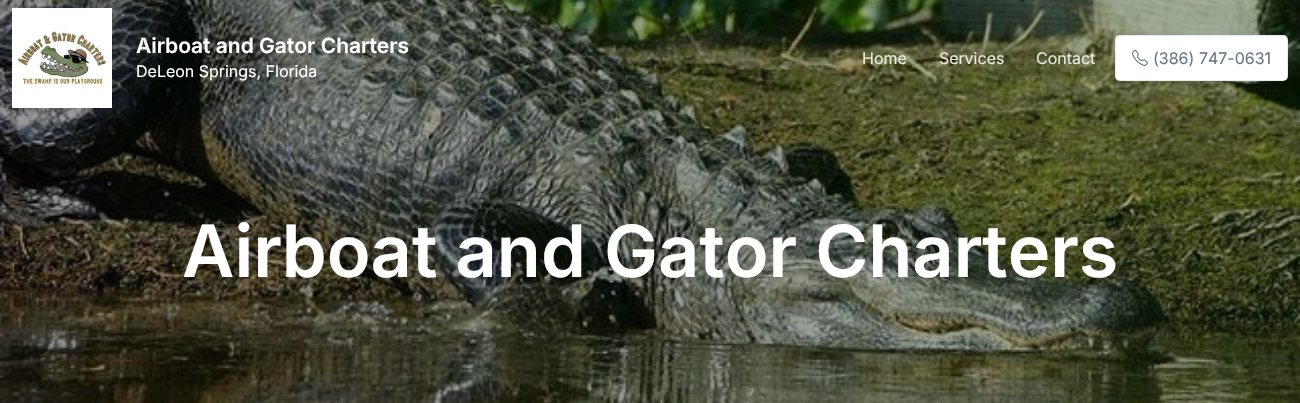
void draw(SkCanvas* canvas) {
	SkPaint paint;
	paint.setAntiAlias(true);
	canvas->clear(0xffffffff);
	canvas->drawImageRect(SkImages::DeferredFromEncodedData(SkData::MakeFromFileName("img3.png")), SkRect::MakeXYWH(0, 0, 1300, 403), SkSamplingOptions());
	canvas->drawImageRect(SkImages::DeferredFromEncodedData(SkData::MakeFromFileName("img1.png")), SkRect::MakeXYWH(12, 8, 100, 100), SkSamplingOptions());
	SkFont f1(fontMgr->matchFamilyStyle("Inter", SkFontStyle(600, SkFontStyle::kNormal_Width, SkFontStyle::kUpright_Slant)), 21);
	f1.setSubpixel(true);
	paint.setColor(0xffffffff);
	canvas->drawString("Airboat and Gator Charters", 136, 53, f1, paint);
	SkFont f2(fontMgr->matchFamilyStyle("Inter", SkFontStyle::Normal()), 16);
	f2.setSubpixel(true);
	canvas->drawString("DeLeon Springs, Florida", 136, 77, f2, paint);
	paint.setColor(0xffe8e9e2);
	canvas->drawString("Home", 862, 64, f2, paint);
	canvas->drawString("Services", 939, 64, f2, paint);
	canvas->drawString("Contact", 1036, 64, f2, paint);
	paint.setColor(0xffffffff);
	canvas->drawRoundRect(SkRect::MakeXYWH(1115, 35, 173, 46), 5, 5, paint);
	paint.setStroke(true);
	paint.setStrokeWidth(1);
	paint.setColor(0x1a21325b);
	canvas->drawRoundRect(SkRect::MakeXYWH(1115.5, 35.5, 172, 45), 4.5, 4.5, paint);
	canvas->drawImageRect(SkImages::DeferredFromEncodedData(SkData::MakeFromFileName("img2.png")), SkRect::MakeXYWH(1132, 50, 16, 16), SkSamplingOptions());
	paint.setStroke(false);
	paint.setColor(0xff677788);
	canvas->drawString("(386) 747-0631", 1153, 64, f2, paint);
	SkFont f3(fontMgr->matchFamilyStyle("Inter", SkFontStyle(600, SkFontStyle::kNormal_Width, SkFontStyle::kUpright_Slant)), 72);
	f3.setSubpixel(true);
	paint.setColor(0xffffffff);
	canvas->drawString("Airboat and Gator Charters", 182, 277, f3, paint);
}
